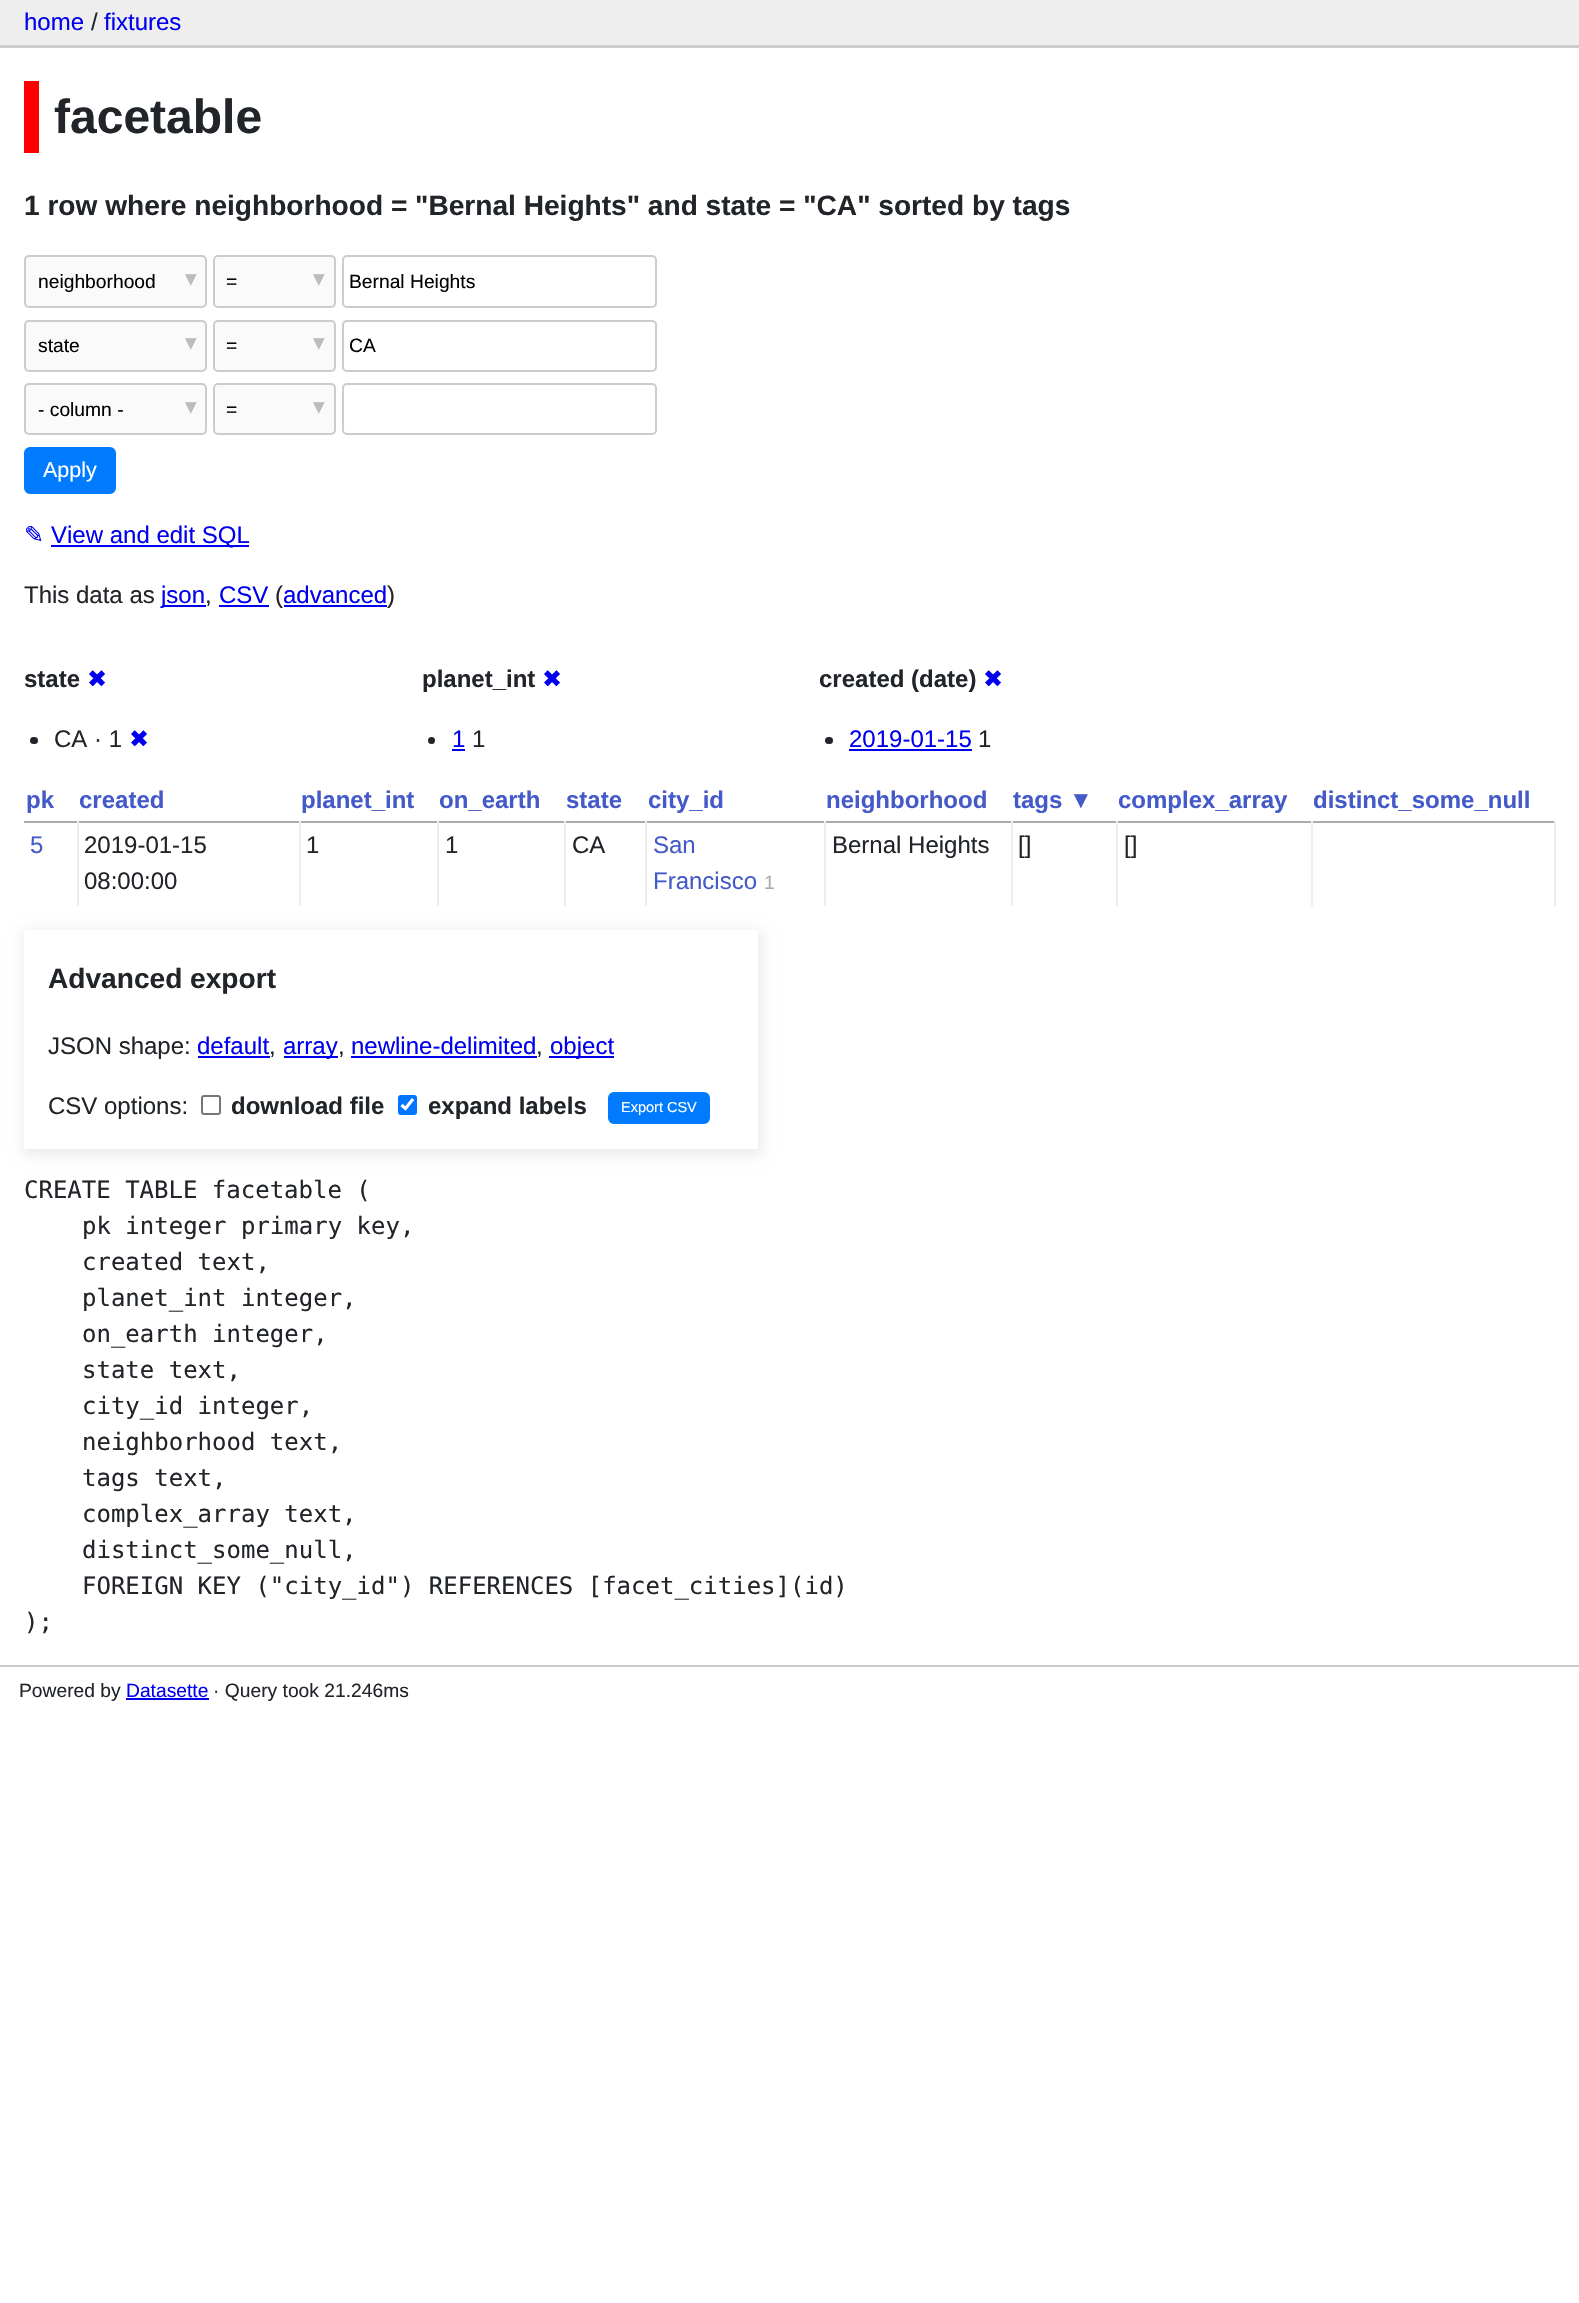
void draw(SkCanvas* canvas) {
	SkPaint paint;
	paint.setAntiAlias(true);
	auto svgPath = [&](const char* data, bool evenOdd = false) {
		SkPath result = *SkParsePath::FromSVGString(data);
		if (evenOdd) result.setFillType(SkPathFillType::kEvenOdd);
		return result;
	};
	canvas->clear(0xffffffff);
	paint.setColor(0xffeeeeee);
	canvas->drawRect(SkRect::MakeXYWH(0, 0, 1579, 45), paint);
	paint.setColor(0xffcccccc);
	canvas->drawRect(SkRect::MakeXYWH(0, 45, 1579, 3), paint);
	SkFont f1(fontMgr->matchFamilyStyle("Liberation Sans", SkFontStyle::Normal()), 24);
	f1.setSubpixel(true);
	paint.setColor(0xff0000ee);
	canvas->drawString("home", 24, 30, f1, paint);
	paint.setColor(0xff212529);
	canvas->drawString("/", 91, 30, f1, paint);
	paint.setColor(0xff0000ee);
	canvas->drawString("fixtures", 104, 30, f1, paint);
	paint.setColor(0xffff0000);
	canvas->drawRect(SkRect::MakeXYWH(24, 81, 15, 72), paint);
	SkFont f2(fontMgr->matchFamilyStyle("Liberation Sans", SkFontStyle::Bold()), 48);
	f2.setSubpixel(true);
	paint.setColor(0xff212529);
	canvas->drawString("facetable", 54, 133, f2, paint);
	SkFont f3(fontMgr->matchFamilyStyle("Liberation Sans", SkFontStyle::Bold()), 28.1);
	f3.setSubpixel(true);
	canvas->drawString("1 row where neighborhood = \"Bernal Heights\" and state = \"CA\" sorted by tags", 24, 215, f3, paint);
	paint.setColor(0xfffafafa);
	canvas->drawRoundRect(SkRect::MakeXYWH(25, 256, 181, 51), 4, 4, paint);
	paint.setStroke(true);
	paint.setStrokeWidth(2);
	paint.setColor(0xffcccccc);
	canvas->drawRoundRect(SkRect::MakeXYWH(25, 256, 181, 51), 4, 4, paint);
	SkFont f4(fontMgr->matchFamilyStyle("Liberation Sans", SkFontStyle::Normal()), 19.25);
	f4.setSubpixel(true);
	paint.setStroke(false);
	paint.setColor(0xff000000);
	canvas->drawString("neighborhood", 38, 288, f4, paint);
	SkFont f5(fontMgr->matchFamilyStyle("DejaVu Sans", SkFontStyle::Normal()), 23);
	f5.setSubpixel(true);
	paint.setColor(0xffbbbbbb);
	canvas->drawString("▾", 185, 286, f5, paint);
	paint.setColor(0xfffafafa);
	canvas->drawRoundRect(SkRect::MakeXYWH(214, 256, 121, 51), 4, 4, paint);
	paint.setStroke(true);
	paint.setColor(0xffcccccc);
	canvas->drawRoundRect(SkRect::MakeXYWH(214, 256, 121, 51), 4, 4, paint);
	paint.setStroke(false);
	paint.setColor(0xff000000);
	canvas->drawString("=", 226, 288, f4, paint);
	paint.setColor(0xffbbbbbb);
	canvas->drawString("▾", 313, 286, f5, paint);
	paint.setStroke(true);
	paint.setColor(0xffcccccc);
	canvas->drawRoundRect(SkRect::MakeXYWH(343, 256, 313, 51), 4, 4, paint);
	paint.setStroke(false);
	paint.setColor(0xff000000);
	canvas->drawString("Bernal Heights", 349, 288, f4, paint);
	paint.setColor(0xfffafafa);
	canvas->drawRoundRect(SkRect::MakeXYWH(25, 321, 181, 50), 4, 4, paint);
	paint.setStroke(true);
	paint.setColor(0xffcccccc);
	canvas->drawRoundRect(SkRect::MakeXYWH(25, 321, 181, 50), 4, 4, paint);
	paint.setStroke(false);
	paint.setColor(0xff000000);
	canvas->drawString("state", 38, 352, f4, paint);
	paint.setColor(0xffbbbbbb);
	canvas->drawString("▾", 185, 350, f5, paint);
	paint.setColor(0xfffafafa);
	canvas->drawRoundRect(SkRect::MakeXYWH(214, 321, 121, 50), 4, 4, paint);
	paint.setStroke(true);
	paint.setColor(0xffcccccc);
	canvas->drawRoundRect(SkRect::MakeXYWH(214, 321, 121, 50), 4, 4, paint);
	paint.setStroke(false);
	paint.setColor(0xff000000);
	canvas->drawString("=", 226, 352, f4, paint);
	paint.setColor(0xffbbbbbb);
	canvas->drawString("▾", 313, 350, f5, paint);
	paint.setStroke(true);
	paint.setColor(0xffcccccc);
	canvas->drawRoundRect(SkRect::MakeXYWH(343, 321, 313, 50), 4, 4, paint);
	paint.setStroke(false);
	paint.setColor(0xff000000);
	canvas->drawString("CA", 349, 352, f4, paint);
	paint.setColor(0xfffafafa);
	canvas->drawRoundRect(SkRect::MakeXYWH(25, 384, 181, 50), 4, 4, paint);
	paint.setStroke(true);
	paint.setColor(0xffcccccc);
	canvas->drawRoundRect(SkRect::MakeXYWH(25, 384, 181, 50), 4, 4, paint);
	paint.setStroke(false);
	paint.setColor(0xff000000);
	canvas->drawString("- column -", 38, 416, f4, paint);
	paint.setColor(0xffbbbbbb);
	canvas->drawString("▾", 185, 414, f5, paint);
	paint.setColor(0xfffafafa);
	canvas->drawRoundRect(SkRect::MakeXYWH(214, 384, 121, 50), 4, 4, paint);
	paint.setStroke(true);
	paint.setColor(0xffcccccc);
	canvas->drawRoundRect(SkRect::MakeXYWH(214, 384, 121, 50), 4, 4, paint);
	paint.setStroke(false);
	paint.setColor(0xff000000);
	canvas->drawString("=", 226, 416, f4, paint);
	paint.setColor(0xffbbbbbb);
	canvas->drawString("▾", 313, 414, f5, paint);
	paint.setStroke(true);
	paint.setColor(0xffcccccc);
	canvas->drawRoundRect(SkRect::MakeXYWH(343, 384, 313, 50), 4, 4, paint);
	paint.setStroke(false);
	paint.setColor(0xff007bff);
	canvas->drawRoundRect(SkRect::MakeXYWH(25, 448, 90, 45), 5, 5, paint);
	paint.setStroke(true);
	canvas->drawRoundRect(SkRect::MakeXYWH(25, 448, 90, 45), 5, 5, paint);
	SkFont f6(fontMgr->matchFamilyStyle("Liberation Sans", SkFontStyle::Normal()), 21.5);
	f6.setSubpixel(true);
	paint.setStroke(false);
	paint.setColor(0xffffffff);
	canvas->drawString("Apply", 43, 477, f6, paint);
	SkFont f7(fontMgr->matchFamilyStyle("DejaVu Sans", SkFontStyle::Normal()), 24);
	f7.setSubpixel(true);
	paint.setColor(0xff0000ee);
	canvas->drawString("✎", 24, 543, f7, paint);
	canvas->drawRect(SkRect::MakeXYWH(51, 545, 198, 2), paint);
	canvas->drawString("View and edit SQL", 51, 543, f1, paint);
	paint.setColor(0xff212529);
	canvas->drawString("This data as", 24, 603, f1, paint);
	paint.setColor(0xff0000ee);
	canvas->drawRect(SkRect::MakeXYWH(162, 605, 44, 2), paint);
	canvas->drawString("json", 161, 603, f1, paint);
	paint.setColor(0xff212529);
	canvas->drawString(",", 205, 603, f1, paint);
	paint.setColor(0xff0000ee);
	canvas->drawString("CSV", 219, 603, f1, paint);
	canvas->drawRect(SkRect::MakeXYWH(219, 605, 50, 2), paint);
	paint.setColor(0xff212529);
	canvas->drawString("(", 275, 603, f1, paint);
	paint.setColor(0xff0000ee);
	canvas->drawString("advanced", 283, 603, f1, paint);
	canvas->drawRect(SkRect::MakeXYWH(284, 605, 103, 2), paint);
	paint.setColor(0xff212529);
	canvas->drawString(")", 387, 603, f1, paint);
	SkFont f8(fontMgr->matchFamilyStyle("Liberation Sans", SkFontStyle::Bold()), 24);
	f8.setSubpixel(true);
	canvas->drawString("state", 24, 687, f8, paint);
	paint.setColor(0xff0000ee);
	canvas->drawString("✖", 87, 687, f7, paint);
	paint.setColor(0xff212529);
	canvas->drawRoundRect(SkRect::MakeXYWH(30, 737, 8, 7), 3.5, 3.5, paint);
	canvas->drawString("CA · 1", 54, 747, f1, paint);
	paint.setColor(0xff0000ee);
	canvas->drawString("✖", 129, 747, f7, paint);
	paint.setColor(0xff212529);
	canvas->drawString("planet_int", 422, 687, f8, paint);
	paint.setColor(0xff0000ee);
	canvas->drawString("✖", 542, 687, f7, paint);
	paint.setColor(0xff212529);
	canvas->drawCircle(431.5, 740.5, 3.5, paint);
	paint.setColor(0xff0000ee);
	canvas->drawString("1", 452, 747, f1, paint);
	canvas->drawRect(SkRect::MakeXYWH(452, 749, 13, 2), paint);
	paint.setColor(0xff212529);
	canvas->drawString("1", 472, 747, f1, paint);
	canvas->drawString("created (date)", 819, 687, f8, paint);
	paint.setColor(0xff0000ee);
	canvas->drawString("✖", 983, 687, f7, paint);
	paint.setColor(0xff212529);
	canvas->drawRoundRect(SkRect::MakeXYWH(825, 737, 8, 7), 3.5, 3.5, paint);
	paint.setColor(0xff0000ee);
	canvas->drawString("2019-01-15", 849, 747, f1, paint);
	canvas->drawRect(SkRect::MakeXYWH(849, 749, 123, 2), paint);
	paint.setColor(0xff212529);
	canvas->drawString("1", 978, 747, f1, paint);
	paint.setColor(0xff445ac8);
	canvas->drawString("pk", 26, 808, f8, paint);
	canvas->drawString("created", 79, 808, f8, paint);
	canvas->drawString("planet_int", 301, 808, f8, paint);
	canvas->drawString("on_earth", 439, 808, f8, paint);
	canvas->drawString("state", 566, 808, f8, paint);
	canvas->drawString("city_id", 648, 808, f8, paint);
	canvas->drawString("neighborhood", 826, 808, f8, paint);
	canvas->drawString("tags ▼", 1013, 808, f8, paint);
	canvas->drawString("complex_array", 1118, 808, f8, paint);
	canvas->drawString("distinct_some_null", 1313, 808, f8, paint);
	paint.setColor(0xffaaaaaa);
	canvas->drawRect(SkRect::MakeXYWH(24, 821, 1532, 2), paint);
	paint.setColor(0xffeeeeee);
	canvas->drawRect(SkRect::MakeXYWH(1554, 821, 2, 85), paint);
	canvas->drawRect(SkRect::MakeXYWH(77, 821, 2, 85), paint);
	paint.setColor(0xff445ac8);
	canvas->drawString("5", 30, 853, f1, paint);
	paint.setColor(0xffeeeeee);
	canvas->drawRect(SkRect::MakeXYWH(299, 821, 2, 85), paint);
	paint.setColor(0xff212529);
	canvas->drawString("2019-01-15", 84, 853, f1, paint);
	canvas->drawString("08:00:00", 84, 889, f1, paint);
	paint.setColor(0xffeeeeee);
	canvas->drawRect(SkRect::MakeXYWH(437, 821, 2, 85), paint);
	paint.setColor(0xff212529);
	canvas->drawString("1", 306, 853, f1, paint);
	paint.setColor(0xffeeeeee);
	canvas->drawRect(SkRect::MakeXYWH(564, 821, 2, 85), paint);
	paint.setColor(0xff212529);
	canvas->drawString("1", 445, 853, f1, paint);
	paint.setColor(0xffeeeeee);
	canvas->drawRect(SkRect::MakeXYWH(645, 821, 2, 85), paint);
	paint.setColor(0xff212529);
	canvas->drawString("CA", 572, 853, f1, paint);
	paint.setColor(0xffeeeeee);
	canvas->drawRect(SkRect::MakeXYWH(824, 821, 2, 85), paint);
	paint.setColor(0xff445ac8);
	canvas->drawString("San", 653, 853, f1, paint);
	canvas->drawString("Francisco", 653, 889, f1, paint);
	paint.setColor(0xffaaaaaa);
	canvas->drawString("1", 764, 889, f4, paint);
	paint.setColor(0xffeeeeee);
	canvas->drawRect(SkRect::MakeXYWH(1011, 821, 2, 85), paint);
	paint.setColor(0xff212529);
	canvas->drawString("Bernal Heights", 832, 853, f1, paint);
	paint.setColor(0xffeeeeee);
	canvas->drawRect(SkRect::MakeXYWH(1116, 821, 2, 85), paint);
	paint.setColor(0xff212529);
	canvas->drawString("[]", 1018, 853, f1, paint);
	paint.setColor(0xffeeeeee);
	canvas->drawRect(SkRect::MakeXYWH(1311, 821, 2, 85), paint);
	paint.setColor(0xff212529);
	canvas->drawString("[]", 1124, 853, f1, paint);
	canvas->save();
	canvas->clipPath(svgPath("M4 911H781V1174H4ZM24 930H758V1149H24Z", true), true);
	paint.setColor(0x14000000);
	paint.setMaskFilter(SkMaskFilter::MakeBlur(kNormal_SkBlurStyle, 6));
	canvas->drawRect(SkRect::MakeXYWH(23, 930, 739, 225), paint);
	paint.setMaskFilter(nullptr);
	canvas->restore();
	paint.setColor(0xff212529);
	canvas->drawString("Advanced export", 48, 988, f3, paint);
	canvas->drawString("JSON shape:", 48, 1054, f1, paint);
	paint.setColor(0xff0000ee);
	canvas->drawString("default", 197, 1054, f1, paint);
	canvas->drawRect(SkRect::MakeXYWH(198, 1056, 72, 2), paint);
	paint.setColor(0xff212529);
	canvas->drawString(",", 269, 1054, f1, paint);
	paint.setColor(0xff0000ee);
	canvas->drawRect(SkRect::MakeXYWH(284, 1056, 54, 2), paint);
	canvas->drawString("array", 283, 1054, f1, paint);
	paint.setColor(0xff212529);
	canvas->drawString(",", 338, 1054, f1, paint);
	paint.setColor(0xff0000ee);
	canvas->drawString("newline-delimited", 351, 1054, f1, paint);
	canvas->drawRect(SkRect::MakeXYWH(351, 1056, 186, 2), paint);
	paint.setColor(0xff212529);
	canvas->drawString(",", 536, 1054, f1, paint);
	paint.setColor(0xff0000ee);
	canvas->drawRect(SkRect::MakeXYWH(549, 1056, 65, 2), paint);
	canvas->drawString("object", 550, 1054, f1, paint);
	paint.setColor(0xff212529);
	canvas->drawString("CSV options:", 48, 1114, f1, paint);
	paint.setStroke(true);
	paint.setColor(0xff767676);
	canvas->drawRoundRect(SkRect::MakeXYWH(202, 1096, 18, 18), 2, 2, paint);
	paint.setStroke(false);
	paint.setColor(0xff212529);
	canvas->drawString("download file", 231, 1114, f8, paint);
	paint.setColor(0xff0075ff);
	canvas->drawRoundRect(SkRect::MakeXYWH(398, 1095, 19, 20), 3, 3, paint);
	paint.setStroke(true);
	paint.setStrokeWidth(3.1);
	paint.setColor(0xffffffff);
	canvas->drawPath(svgPath("M401.5 1105L405.5 1108.5L413 1099"), paint);
	paint.setStroke(false);
	paint.setColor(0xff212529);
	canvas->drawString("expand labels", 428, 1114, f8, paint);
	paint.setColor(0xff007bff);
	canvas->drawRoundRect(SkRect::MakeXYWH(609, 1093, 100, 30), 5, 5, paint);
	paint.setStroke(true);
	paint.setStrokeWidth(2);
	canvas->drawRoundRect(SkRect::MakeXYWH(609, 1093, 100, 30), 5, 5, paint);
	SkFont f9(fontMgr->matchFamilyStyle("Liberation Sans", SkFontStyle::Normal()), 14.5);
	f9.setSubpixel(true);
	paint.setStroke(false);
	paint.setColor(0xffffffff);
	canvas->drawString("Export CSV", 621, 1112, f9, paint);
	SkFont f10(fontMgr->matchFamilyStyle("DejaVu Sans Mono", SkFontStyle::Normal()), 24);
	f10.setSubpixel(true);
	paint.setColor(0xff212529);
	canvas->drawString("CREATE TABLE facetable (", 24, 1198, f10, paint);
	canvas->drawString("pk integer primary key,", 82, 1234, f10, paint);
	canvas->drawString("created text,", 82, 1270, f10, paint);
	canvas->drawString("planet_int integer,", 82, 1306, f10, paint);
	canvas->drawString("on_earth integer,", 82, 1342, f10, paint);
	canvas->drawString("state text,", 82, 1378, f10, paint);
	canvas->drawString("city_id integer,", 82, 1414, f10, paint);
	canvas->drawString("neighborhood text,", 82, 1450, f10, paint);
	canvas->drawString("tags text,", 82, 1486, f10, paint);
	canvas->drawString("complex_array text,", 82, 1522, f10, paint);
	canvas->drawString("distinct_some_null,", 82, 1558, f10, paint);
	canvas->drawString("FOREIGN KEY (\"city_id\") REFERENCES [facet_cities](id)", 82, 1594, f10, paint);
	canvas->drawString(");", 24, 1630, f10, paint);
	paint.setColor(0xffcccccc);
	canvas->drawRect(SkRect::MakeXYWH(0, 1665, 1579, 2), paint);
	paint.setColor(0xff212529);
	canvas->drawString("Powered by", 19, 1697, f4, paint);
	paint.setColor(0xff0000ee);
	canvas->drawString("Datasette", 126, 1697, f4, paint);
	canvas->drawRect(SkRect::MakeXYWH(126, 1698, 83, 2), paint);
	paint.setColor(0xff212529);
	canvas->drawString("· Query took 21.246ms", 213, 1697, f4, paint);
}
